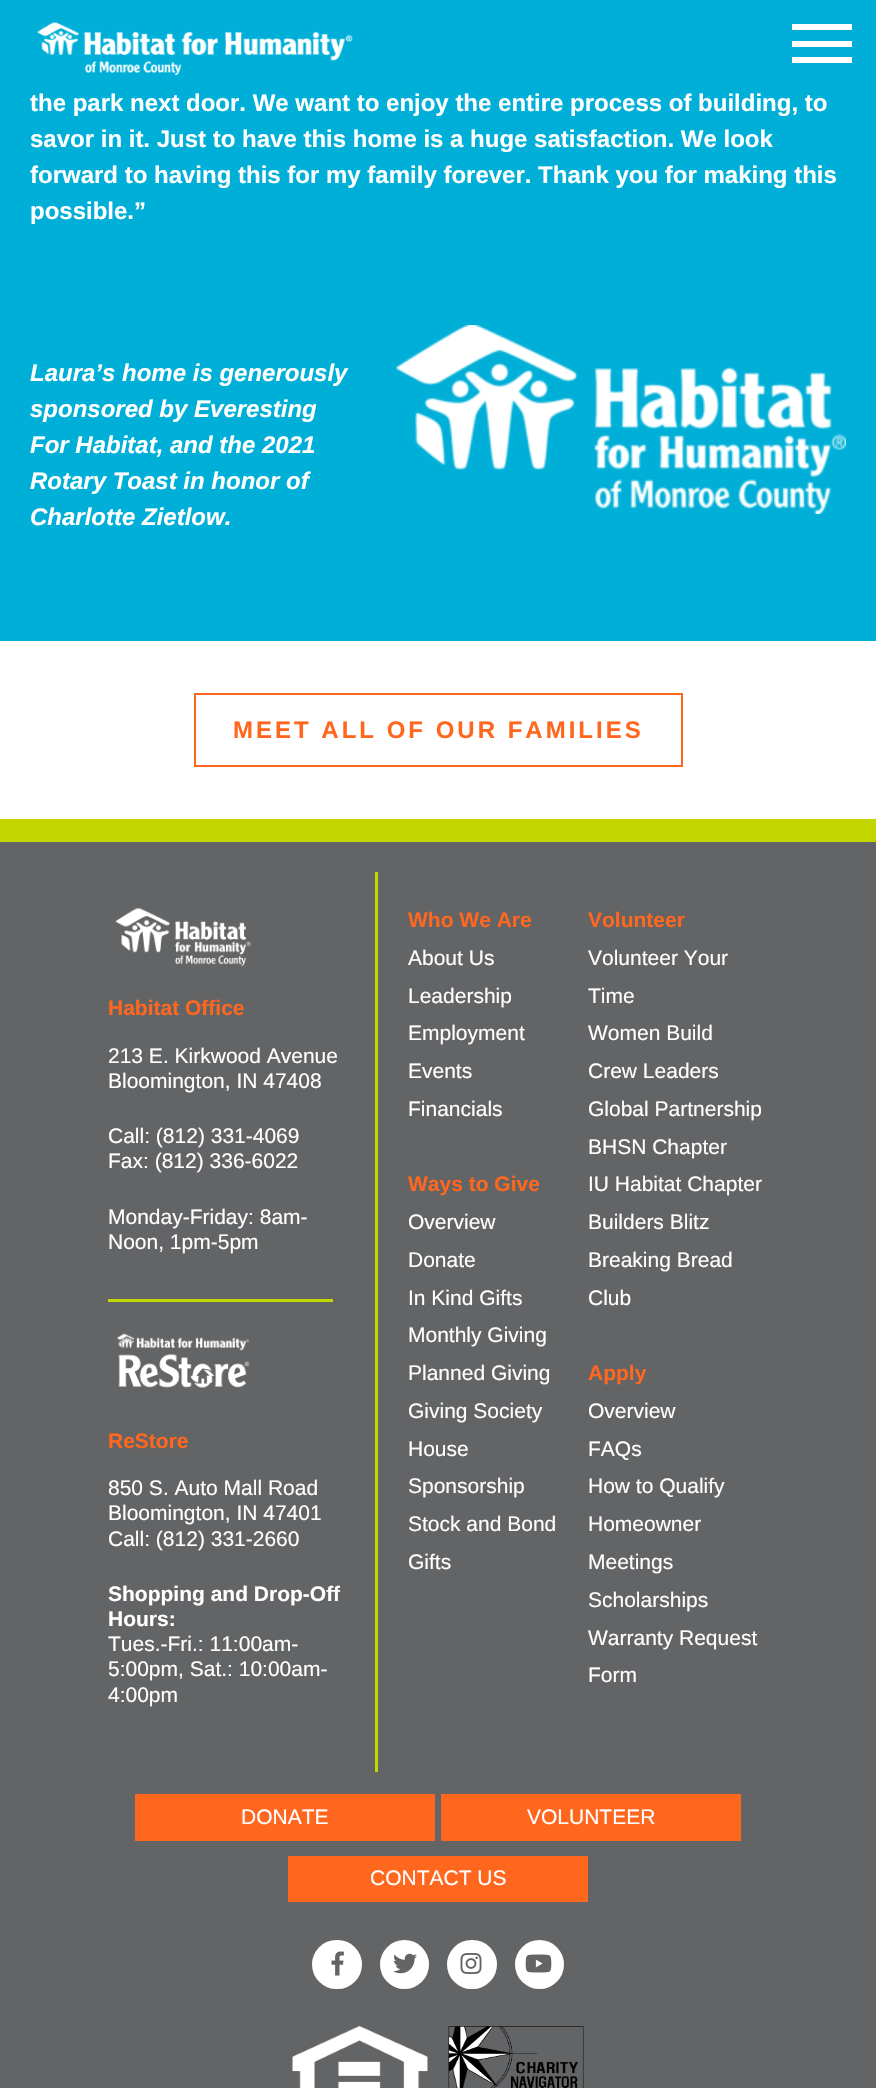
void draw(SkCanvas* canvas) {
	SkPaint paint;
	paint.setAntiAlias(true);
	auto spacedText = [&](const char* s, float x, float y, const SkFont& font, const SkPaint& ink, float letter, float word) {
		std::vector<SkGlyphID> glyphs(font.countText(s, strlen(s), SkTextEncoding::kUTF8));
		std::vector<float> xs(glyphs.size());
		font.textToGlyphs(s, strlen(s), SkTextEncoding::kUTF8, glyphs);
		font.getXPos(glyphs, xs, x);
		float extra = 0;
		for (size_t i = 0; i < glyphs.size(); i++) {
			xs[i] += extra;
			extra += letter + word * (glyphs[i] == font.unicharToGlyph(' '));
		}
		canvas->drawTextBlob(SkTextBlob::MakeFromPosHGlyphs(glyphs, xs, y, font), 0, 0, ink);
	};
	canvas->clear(0xff00afd7);
	canvas->drawImageRect(SkImages::DeferredFromEncodedData(SkData::MakeFromFileName("img1.png")), SkRect::MakeXYWH(37, 22, 316, 54), SkSamplingOptions());
	paint.setColor(0xffffffff);
	canvas->drawRect(SkRect::MakeXYWH(792, 41, 60, 6), paint);
	canvas->drawRect(SkRect::MakeXYWH(792, 24, 60, 6), paint);
	canvas->drawRect(SkRect::MakeXYWH(792, 57, 60, 6), paint);
	SkFont f1(fontMgr->matchFamilyStyle("Liberation Sans", SkFontStyle::Bold()), 24);
	f1.setSubpixel(true);
	canvas->drawString("the park next door. We want to enjoy the entire process of building, to", 30, 111, f1, paint);
	canvas->drawString("savor in it. Just to have this home is a huge satisfaction. We look", 30, 147, f1, paint);
	canvas->drawString("forward to having this for my family forever. Thank you for making this", 30, 183, f1, paint);
	canvas->drawString("possible.”", 30, 219, f1, paint);
	SkFont f2(fontMgr->matchFamilyStyle("Liberation Sans", SkFontStyle::BoldItalic()), 24);
	f2.setSubpixel(true);
	canvas->drawString("Laura’s home is generously", 30, 381, f2, paint);
	canvas->drawString("sponsored by Everesting", 30, 417, f2, paint);
	canvas->drawString("For Habitat, and the 2021", 30, 453, f2, paint);
	canvas->drawString("Rotary Toast in honor of", 30, 489, f2, paint);
	canvas->drawString("Charlotte Zietlow.", 30, 525, f2, paint);
	canvas->drawImageRect(SkImages::DeferredFromEncodedData(SkData::MakeFromFileName("img2.png")), SkRect::MakeXYWH(396, 325, 450, 189), SkSamplingOptions());
	canvas->drawRect(SkRect::MakeXYWH(0, 641, 876, 178), paint);
	paint.setStroke(true);
	paint.setStrokeWidth(2);
	paint.setColor(0xffff671f);
	canvas->drawRect(SkRect::MakeXYWH(195, 694, 487, 72), paint);
	paint.setStroke(false);
	spacedText("MEET ALL OF OUR FAMILIES", 233, 738, f1, paint, 3, 0);
	paint.setColor(0xff636466);
	canvas->drawRect(SkRect::MakeXYWH(0, 842, 876, 1246), paint);
	paint.setColor(0xffc4d600);
	canvas->drawRect(SkRect::MakeXYWH(0, 819, 876, 23), paint);
	canvas->drawRect(SkRect::MakeXYWH(375, 872, 3, 900), paint);
	canvas->drawImageRect(SkImages::DeferredFromEncodedData(SkData::MakeFromFileName("img3.png")), SkRect::MakeXYWH(115, 908, 136, 58), SkSamplingOptions());
	SkFont f3(fontMgr->matchFamilyStyle("Liberation Sans", SkFontStyle::Bold()), 21);
	f3.setSubpixel(true);
	paint.setColor(0xffff671f);
	canvas->drawString("Habitat Office", 108, 1015, f3, paint);
	SkFont f4(fontMgr->matchFamilyStyle("Liberation Sans", SkFontStyle::Normal()), 21);
	f4.setSubpixel(true);
	paint.setColor(0xffffffff);
	canvas->drawString("213 E. Kirkwood Avenue", 108, 1063, f4, paint);
	canvas->drawString("Bloomington, IN 47408", 108, 1088, f4, paint);
	canvas->drawString("Call: (812) 331-4069", 108, 1143, f4, paint);
	canvas->drawString("Fax: (812) 336-6022", 108, 1168, f4, paint);
	canvas->drawString("Monday-Friday: 8am-", 108, 1224, f4, paint);
	canvas->drawString("Noon, 1pm-5pm", 108, 1249, f4, paint);
	paint.setColor(0xffc4d600);
	canvas->drawRect(SkRect::MakeXYWH(108, 1299, 225, 3), paint);
	canvas->drawImageRect(SkImages::DeferredFromEncodedData(SkData::MakeFromFileName("img4.png")), SkRect::MakeXYWH(116, 1333, 134, 55), SkSamplingOptions());
	paint.setColor(0xffff671f);
	canvas->drawString("ReStore", 108, 1448, f3, paint);
	paint.setColor(0xffffffff);
	canvas->drawString("850 S. Auto Mall Road", 108, 1495, f4, paint);
	canvas->drawString("Bloomington, IN 47401", 108, 1520, f4, paint);
	canvas->drawString("Call: (812) 331-2660", 108, 1546, f4, paint);
	canvas->drawString("Shopping and Drop-Off", 108, 1601, f3, paint);
	canvas->drawString("Hours:", 108, 1626, f3, paint);
	canvas->drawString("Tues.-Fri.: 11:00am-", 108, 1651, f4, paint);
	canvas->drawString("5:00pm, Sat.: 10:00am-", 108, 1676, f4, paint);
	canvas->drawString("4:00pm", 108, 1702, f4, paint);
	paint.setColor(0xffff671f);
	canvas->drawString("Who We Are", 408, 927, f3, paint);
	paint.setColor(0xffffffff);
	canvas->drawString("About Us", 408, 965, f4, paint);
	canvas->drawString("Leadership", 408, 1003, f4, paint);
	canvas->drawString("Employment", 408, 1040, f4, paint);
	canvas->drawString("Events", 408, 1078, f4, paint);
	canvas->drawString("Financials", 408, 1116, f4, paint);
	paint.setColor(0xffff671f);
	canvas->drawString("Ways to Give", 408, 1191, f3, paint);
	paint.setColor(0xffffffff);
	canvas->drawString("Overview", 408, 1229, f4, paint);
	canvas->drawString("Donate", 408, 1267, f4, paint);
	canvas->drawString("In Kind Gifts", 408, 1305, f4, paint);
	canvas->drawString("Monthly Giving", 408, 1342, f4, paint);
	canvas->drawString("Planned Giving", 408, 1380, f4, paint);
	canvas->drawString("Giving Society", 408, 1418, f4, paint);
	canvas->drawString("House", 408, 1456, f4, paint);
	canvas->drawString("Sponsorship", 408, 1493, f4, paint);
	canvas->drawString("Stock and Bond", 408, 1531, f4, paint);
	canvas->drawString("Gifts", 408, 1569, f4, paint);
	paint.setColor(0xffff671f);
	canvas->drawString("Volunteer", 588, 927, f3, paint);
	paint.setColor(0xffffffff);
	canvas->drawString("Volunteer Your", 588, 965, f4, paint);
	canvas->drawString("Time", 588, 1003, f4, paint);
	canvas->drawString("Women Build", 588, 1040, f4, paint);
	canvas->drawString("Crew Leaders", 588, 1078, f4, paint);
	canvas->drawString("Global Partnership", 588, 1116, f4, paint);
	canvas->drawString("BHSN Chapter", 588, 1154, f4, paint);
	canvas->drawString("IU Habitat Chapter", 588, 1191, f4, paint);
	canvas->drawString("Builders Blitz", 588, 1229, f4, paint);
	canvas->drawString("Breaking Bread", 588, 1267, f4, paint);
	canvas->drawString("Club", 588, 1305, f4, paint);
	paint.setColor(0xffff671f);
	canvas->drawString("Apply", 588, 1380, f3, paint);
	paint.setColor(0xffffffff);
	canvas->drawString("Overview", 588, 1418, f4, paint);
	canvas->drawString("FAQs", 588, 1456, f4, paint);
	canvas->drawString("How to Qualify", 588, 1493, f4, paint);
	canvas->drawString("Homeowner", 588, 1531, f4, paint);
	canvas->drawString("Meetings", 588, 1569, f4, paint);
	canvas->drawString("Scholarships", 588, 1607, f4, paint);
	canvas->drawString("Warranty Request", 588, 1645, f4, paint);
	canvas->drawString("Form", 588, 1682, f4, paint);
	paint.setColor(0xffff671f);
	canvas->drawRect(SkRect::MakeXYWH(135, 1794, 300, 47), paint);
	paint.setColor(0xffffffff);
	canvas->drawString("DONATE", 241, 1824, f4, paint);
	paint.setColor(0xffff671f);
	canvas->drawRect(SkRect::MakeXYWH(441, 1794, 300, 47), paint);
	paint.setColor(0xffffffff);
	canvas->drawString("VOLUNTEER", 527, 1824, f4, paint);
	paint.setColor(0xffff671f);
	canvas->drawRect(SkRect::MakeXYWH(288, 1856, 300, 46), paint);
	paint.setColor(0xffffffff);
	canvas->drawString("CONTACT US", 370, 1885, f4, paint);
	canvas->drawRoundRect(SkRect::MakeXYWH(312, 1940, 50, 49), 24.5, 24.5, paint);
	canvas->drawImageRect(SkImages::DeferredFromEncodedData(SkData::MakeFromFileName("img5.png")), SkRect::MakeXYWH(331, 1951, 13, 25), SkSamplingOptions());
	canvas->drawCircle(404.5, 1964.5, 24.5, paint);
	canvas->drawImageRect(SkImages::DeferredFromEncodedData(SkData::MakeFromFileName("img6.png")), SkRect::MakeXYWH(393, 1953, 24, 21), SkSamplingOptions());
	canvas->drawRoundRect(SkRect::MakeXYWH(447, 1940, 50, 49), 24.5, 24.5, paint);
	canvas->drawImageRect(SkImages::DeferredFromEncodedData(SkData::MakeFromFileName("img7.png")), SkRect::MakeXYWH(460, 1953, 22, 21), SkSamplingOptions());
	canvas->drawCircle(539.5, 1964.5, 24.5, paint);
	canvas->drawImageRect(SkImages::DeferredFromEncodedData(SkData::MakeFromFileName("img8.png")), SkRect::MakeXYWH(525, 1954, 27, 19), SkSamplingOptions());
	canvas->drawImageRect(SkImages::DeferredFromEncodedData(SkData::MakeFromFileName("img9.png")), SkRect::MakeXYWH(292, 2026, 136, 62), SkSamplingOptions());
	canvas->drawImageRect(SkImages::DeferredFromEncodedData(SkData::MakeFromFileName("img10.png")), SkRect::MakeXYWH(448, 2026, 136, 62), SkSamplingOptions());
}
